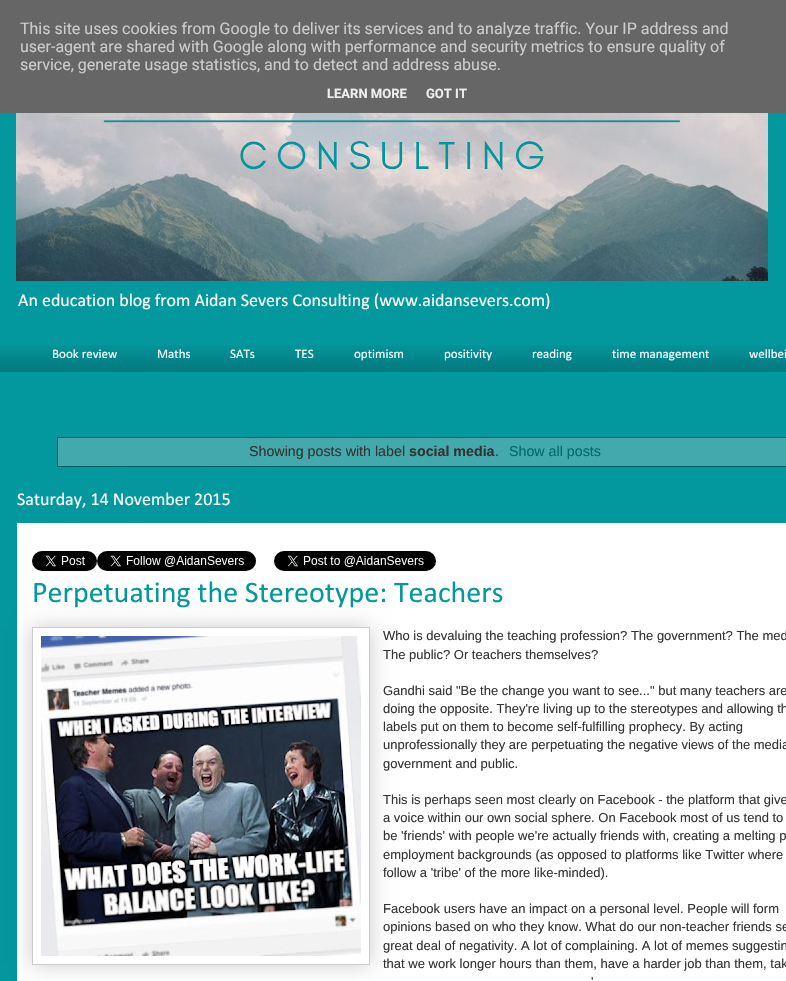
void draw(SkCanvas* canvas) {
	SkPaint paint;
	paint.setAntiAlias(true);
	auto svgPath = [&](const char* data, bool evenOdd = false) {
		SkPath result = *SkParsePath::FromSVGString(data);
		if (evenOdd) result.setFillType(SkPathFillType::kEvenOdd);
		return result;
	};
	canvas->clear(0xff03989e);
	paint.setColor(0xff666666);
	canvas->drawRect(SkRect::MakeXYWH(0, 0, 786, 113), paint);
	SkFont f1(fontMgr->matchFamilyStyle("Roboto", SkFontStyle::Normal()), 16);
	f1.setSubpixel(true);
	paint.setColor(0xffcccccc);
	canvas->drawString("This site uses cookies from Google to deliver its services and to analyze traffic. Your IP address and", 20, 34, f1, paint);
	canvas->drawString("user-agent are shared with Google along with performance and security metrics to ensure quality of", 20, 52, f1, paint);
	canvas->drawString("service, generate usage statistics, and to detect and address abuse.", 20, 70, f1, paint);
	SkFont f2(fontMgr->matchFamilyStyle("Roboto", SkFontStyle::Bold()), 13);
	f2.setSubpixel(true);
	paint.setColor(0xffeeeeee);
	canvas->drawString("LEARN MORE", 327, 98, f2, paint);
	canvas->drawString("GOT IT", 426, 98, f2, paint);
	canvas->drawImageRect(SkImages::DeferredFromEncodedData(SkData::MakeFromFileName("img1.png")), SkRect::MakeXYWH(16, 113, 752, 168), SkSamplingOptions());
	SkFont f3(fontMgr->matchFamilyStyle("Calibri", SkFontStyle::Normal()), 18);
	f3.setSubpixel(true);
	paint.setColor(0xffffffff);
	canvas->drawString("An education blog from Aidan Severs Consulting (www.aidansevers.com)", 18, 306, f3, paint);
	canvas->drawImageRect(SkImages::DeferredFromEncodedData(SkData::MakeFromFileName("img2.png")), SkRect::MakeXYWH(0, 345, 786, 27), SkSamplingOptions());
	SkFont f4(fontMgr->matchFamilyStyle("Calibri", SkFontStyle::Normal()), 13);
	f4.setSubpixel(true);
	canvas->drawString("Book review", 52, 358, f4, paint);
	canvas->drawString("Maths", 157, 358, f4, paint);
	canvas->drawString("SATs", 230, 358, f4, paint);
	canvas->drawString("TES", 295, 358, f4, paint);
	canvas->drawString("optimism", 354, 358, f4, paint);
	canvas->drawString("positivity", 444, 358, f4, paint);
	canvas->drawString("reading", 532, 358, f4, paint);
	canvas->drawString("time management", 612, 358, f4, paint);
	canvas->drawString("wellbei", 749, 358, f4, paint);
	paint.setStroke(true);
	paint.setStrokeWidth(1);
	paint.setColor(0xff025b5f);
	canvas->drawRect(SkRect::MakeXYWH(57.5, 437.5, 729, 29), paint);
	paint.setStroke(false);
	paint.setColor(0xff43a9ad);
	canvas->drawRect(SkRect::MakeXYWH(58, 438, 728, 28), paint);
	SkFont f5(fontMgr->matchFamilyStyle("Liberation Sans", SkFontStyle::Normal()), 14.25);
	f5.setSubpixel(true);
	paint.setColor(0xff333333);
	canvas->drawString("Showing posts with label", 249, 456, f5, paint);
	SkFont f6(fontMgr->matchFamilyStyle("Liberation Sans", SkFontStyle::Bold()), 14.25);
	f6.setSubpixel(true);
	canvas->drawString("social media", 409, 456, f6, paint);
	canvas->drawString(".", 495, 456, f5, paint);
	paint.setColor(0xff00696d);
	canvas->drawString("Show all posts", 509, 456, f5, paint);
	paint.setColor(0xffffffff);
	canvas->drawRect(SkRect::MakeXYWH(17, 523, 769, 458), paint);
	canvas->drawString("Saturday, 14 November 2015", 17, 505, f3, paint);
	canvas->drawImageRect(SkImages::DeferredFromEncodedData(SkData::MakeFromFileName("img3.png")), SkRect::MakeXYWH(32, 551, 65, 20), SkSamplingOptions());
	canvas->drawImageRect(SkImages::DeferredFromEncodedData(SkData::MakeFromFileName("img4.png")), SkRect::MakeXYWH(97, 551, 159, 20), SkSamplingOptions());
	canvas->drawImageRect(SkImages::DeferredFromEncodedData(SkData::MakeFromFileName("img5.png")), SkRect::MakeXYWH(274, 551, 162, 20), SkSamplingOptions());
	SkFont f7(fontMgr->matchFamilyStyle("Calibri", SkFontStyle::Normal()), 30);
	f7.setSubpixel(true);
	paint.setColor(0xff03989e);
	canvas->drawString("Perpetuating the Stereotype: Teachers", 32, 602, f7, paint);
	canvas->save();
	canvas->clipPath(svgPath("M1 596H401V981H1ZM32 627H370V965H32Z", true), true);
	paint.setColor(0x33000000);
	paint.setMaskFilter(SkMaskFilter::MakeBlur(kNormal_SkBlurStyle, 10));
	canvas->drawRect(SkRect::MakeXYWH(32, 627, 338, 338), paint);
	paint.setMaskFilter(nullptr);
	canvas->restore();
	paint.setStroke(true);
	paint.setColor(0xffcccccc);
	canvas->drawRect(SkRect::MakeXYWH(32.5, 627.5, 337, 337), paint);
	canvas->drawImageRect(SkImages::DeferredFromEncodedData(SkData::MakeFromFileName("img6.png")), SkRect::MakeXYWH(41, 636, 320, 320), SkSamplingOptions());
	SkFont f8(fontMgr->matchFamilyStyle("Liberation Sans", SkFontStyle::Normal()), 13);
	f8.setSubpixel(true);
	paint.setStroke(false);
	paint.setColor(0xff333333);
	canvas->drawString("Who is devaluing the teaching profession? The government? The med", 383, 640, f8, paint);
	canvas->drawString("The public? Or teachers themselves?", 383, 659, f8, paint);
	canvas->drawString("Gandhi said \"Be the change you want to see...\" but many teachers are", 383, 695, f8, paint);
	canvas->drawString("doing the opposite. They're living up to the stereotypes and allowing th", 383, 713, f8, paint);
	canvas->drawString("labels put on them to become self-fulfilling prophecy. By acting", 383, 731, f8, paint);
	canvas->drawString("unprofessionally they are perpetuating the negative views of the media", 383, 749, f8, paint);
	canvas->drawString("government and public.", 383, 768, f8, paint);
	canvas->drawString("This is perhaps seen most clearly on Facebook - the platform that give", 383, 804, f8, paint);
	canvas->drawString("a voice within our own social sphere. On Facebook most of us tend to", 383, 822, f8, paint);
	canvas->drawString("be 'friends' with people we're actually friends with, creating a melting p", 383, 840, f8, paint);
	canvas->drawString("employment backgrounds (as opposed to platforms like Twitter where", 383, 859, f8, paint);
	canvas->drawString("follow a 'tribe' of the more like-minded).", 383, 877, f8, paint);
	canvas->drawString("Facebook users have an impact on a personal level. People will form", 383, 913, f8, paint);
	canvas->drawString("opinions based on who they know. What do our non-teacher friends se", 383, 931, f8, paint);
	canvas->drawString("great deal of negativity. A lot of complaining. A lot of memes suggestin", 383, 950, f8, paint);
	canvas->drawString("that we work longer hours than them, have a harder job than them, tak", 383, 968, f8, paint);
	canvas->drawString("'", 591, 986, f8, paint);
}
